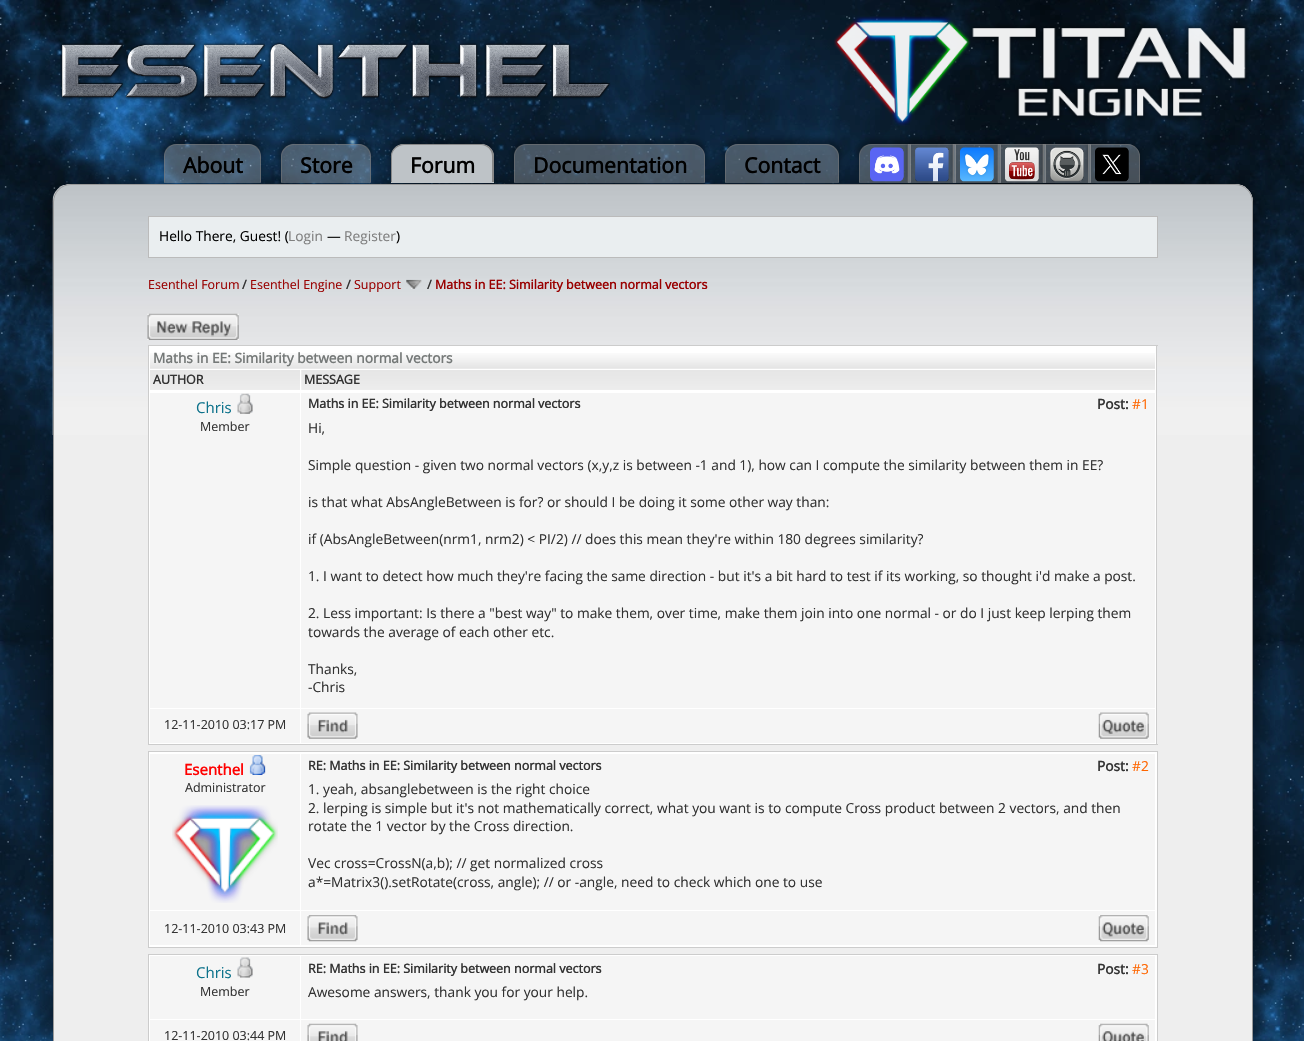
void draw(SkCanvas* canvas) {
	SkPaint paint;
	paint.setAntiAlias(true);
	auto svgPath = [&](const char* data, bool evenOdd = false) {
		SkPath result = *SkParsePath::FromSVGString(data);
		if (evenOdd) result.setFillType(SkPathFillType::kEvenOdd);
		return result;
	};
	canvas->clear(0xffffffff);
	canvas->drawImageRect(SkImages::DeferredFromEncodedData(SkData::MakeFromFileName("img1.png")), SkRect::MakeXYWH(0, 0, 1304, 1041), SkSamplingOptions());
	canvas->drawImageRect(SkImages::DeferredFromEncodedData(SkData::MakeFromFileName("img2.png")), SkRect::MakeXYWH(60, 42, 551, 58), SkSamplingOptions());
	canvas->drawImageRect(SkImages::DeferredFromEncodedData(SkData::MakeFromFileName("img3.png")), SkRect::MakeXYWH(834, 16, 415, 110), SkSamplingOptions());
	paint.setColor(0x66000000);
	paint.setMaskFilter(SkMaskFilter::MakeBlur(kNormal_SkBlurStyle, 9.5));
	canvas->drawRoundRect(SkRect::MakeXYWH(51, 183, 1210, 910), 23, 23, paint);
	paint.setMaskFilter(nullptr);
	paint.setColor(0xffeeeeee);
	canvas->drawRoundRect(SkRect::MakeXYWH(53, 184, 1200, 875), 18, 18, paint);
	canvas->drawImageRect(SkImages::DeferredFromEncodedData(SkData::MakeFromFileName("img10.png")), SkRect::MakeXYWH(52, 185, 1201, 250), SkSamplingOptions());
	paint.setStroke(true);
	paint.setStrokeWidth(1);
	paint.setColor(0xff999999);
	canvas->drawRoundRect(SkRect::MakeXYWH(53.5, 184.5, 1199, 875), 17.5, 17.5, paint);
	canvas->save();
	canvas->clipPath(svgPath("M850 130H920V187H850ZM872 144H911V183H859V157C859 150 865 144 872 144Z", true), true);
	paint.setStroke(false);
	paint.setColor(0x4d000000);
	paint.setMaskFilter(SkMaskFilter::MakeBlur(kNormal_SkBlurStyle, 2.5));
	canvas->drawRoundRect(SkRect::MakeXYWH(859, 139, 52, 39), 13, 13, paint);
	paint.setMaskFilter(nullptr);
	canvas->restore();
	paint.setColor(0x66a5aaae);
	canvas->drawPath(svgPath("M872 144H911V183H859V157C859 150 865 144 872 144Z"), paint);
	paint.setColor(0x8c777777);
	canvas->drawPath(svgPath("M871 144H911V182H859V156C859 149 864 144 871 144ZM871 145H910V182H860V156C860 150 865 145 871 145Z", true), paint);
	canvas->drawImageRect(SkImages::DeferredFromEncodedData(SkData::MakeFromFileName("img4.png")), SkRect::MakeXYWH(870, 147, 34, 35), SkSamplingOptions());
	canvas->save();
	canvas->clipPath(svgPath("M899 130H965V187H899ZM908 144H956V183H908Z", true), true);
	paint.setColor(0x4d000000);
	paint.setMaskFilter(SkMaskFilter::MakeBlur(kNormal_SkBlurStyle, 2.5));
	canvas->drawRect(SkRect::MakeXYWH(908, 139, 48, 39), paint);
	paint.setMaskFilter(nullptr);
	canvas->restore();
	paint.setColor(0x66a5aaae);
	canvas->drawRect(SkRect::MakeXYWH(908, 144, 48, 39), paint);
	paint.setColor(0x8c777777);
	canvas->drawPath(svgPath("M908 144H956L955 145H909Z"), paint);
	canvas->drawPath(svgPath("M956 144V182.5H955V145ZM907.5 182.5V144L909 145V182.5Z"), paint);
	canvas->drawImageRect(SkImages::DeferredFromEncodedData(SkData::MakeFromFileName("img5.png")), SkRect::MakeXYWH(915, 147, 34, 35), SkSamplingOptions());
	canvas->save();
	canvas->clipPath(svgPath("M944 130H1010V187H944ZM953 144H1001V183H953Z", true), true);
	paint.setColor(0x4d000000);
	paint.setMaskFilter(SkMaskFilter::MakeBlur(kNormal_SkBlurStyle, 2.5));
	canvas->drawRect(SkRect::MakeXYWH(953, 139, 48, 39), paint);
	paint.setMaskFilter(nullptr);
	canvas->restore();
	paint.setColor(0x66a5aaae);
	canvas->drawRect(SkRect::MakeXYWH(953, 144, 48, 39), paint);
	paint.setColor(0x8c777777);
	canvas->drawPath(svgPath("M952 144H1001L1000 145H954Z"), paint);
	canvas->drawPath(svgPath("M1001 144V182.5H1000V145ZM952.5 182.5V144L954 145V182.5Z"), paint);
	paint.setColor(0x66a5aaae);
	canvas->drawRect(SkRect::MakeXYWH(998, 144, 48, 39), paint);
	paint.setColor(0x8c777777);
	canvas->drawPath(svgPath("M998 144H1046L1045 145H999Z"), paint);
	canvas->drawPath(svgPath("M1046 144V182.5H1045V145ZM997.5 182.5V144L999 145V182.5Z"), paint);
	canvas->drawImageRect(SkImages::DeferredFromEncodedData(SkData::MakeFromFileName("img7.png")), SkRect::MakeXYWH(1005, 147, 34, 35), SkSamplingOptions());
	canvas->save();
	canvas->clipPath(svgPath("M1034 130H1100V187H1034ZM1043 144H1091V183H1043Z", true), true);
	paint.setColor(0x4d000000);
	paint.setMaskFilter(SkMaskFilter::MakeBlur(kNormal_SkBlurStyle, 2.5));
	canvas->drawRect(SkRect::MakeXYWH(1043, 139, 48, 39), paint);
	paint.setMaskFilter(nullptr);
	canvas->restore();
	paint.setColor(0x66a5aaae);
	canvas->drawRect(SkRect::MakeXYWH(1043, 144, 48, 39), paint);
	paint.setColor(0x8c777777);
	canvas->drawPath(svgPath("M1042 144H1091L1090 145H1044Z"), paint);
	canvas->drawPath(svgPath("M1091 144V182.5H1090V145ZM1042.5 182.5V144L1044 145V182.5Z"), paint);
	canvas->drawImageRect(SkImages::DeferredFromEncodedData(SkData::MakeFromFileName("img8.png")), SkRect::MakeXYWH(1050, 147, 34, 35), SkSamplingOptions());
	canvas->save();
	canvas->clipPath(svgPath("M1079 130H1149V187H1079ZM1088 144H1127C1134 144 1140 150 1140 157V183H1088Z", true), true);
	paint.setColor(0x4d000000);
	paint.setMaskFilter(SkMaskFilter::MakeBlur(kNormal_SkBlurStyle, 2.5));
	canvas->drawRoundRect(SkRect::MakeXYWH(1088, 139, 52, 39), 13, 13, paint);
	paint.setMaskFilter(nullptr);
	canvas->restore();
	paint.setColor(0x66a5aaae);
	canvas->drawPath(svgPath("M1088 144H1127C1134 144 1140 150 1140 157V183H1088Z"), paint);
	canvas->drawImageRect(SkImages::DeferredFromEncodedData(SkData::MakeFromFileName("img6.png")), SkRect::MakeXYWH(960, 147, 34, 35), SkSamplingOptions());
	paint.setColor(0x8c777777);
	canvas->drawPath(svgPath("M1088 144H1128C1134 144 1140 149 1140 156V182H1088ZM1089 145H1128C1134 145 1139 150 1139 156V182H1089Z", true), paint);
	canvas->save();
	canvas->clipPath(svgPath("M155 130H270V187H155ZM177 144H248C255 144 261 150 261 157V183H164V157C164 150 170 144 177 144Z", true), true);
	paint.setColor(0x4d000000);
	paint.setMaskFilter(SkMaskFilter::MakeBlur(kNormal_SkBlurStyle, 2.5));
	canvas->drawRoundRect(SkRect::MakeXYWH(164, 139, 97, 39), 13, 13, paint);
	paint.setMaskFilter(nullptr);
	canvas->restore();
	paint.setColor(0x66a5aaae);
	canvas->drawPath(svgPath("M177 144H248C255 144 261 150 261 157V183H164V157C164 150 170 144 177 144Z"), paint);
	paint.setColor(0x8c777777);
	canvas->drawPath(svgPath("M176 144H249C256 144 261 149 261 156V182H164V156C164 149 169 144 176 144ZM176 145H249C255 145 260 150 260 156V182H165V156C165 150 170 145 176 145Z", true), paint);
	SkFont f1(fontMgr->matchFamilyStyle("Open Sans", SkFontStyle::Bold()), 21.25);
	f1.setSubpixel(true);
	paint.setColor(0xff000000);
	canvas->drawString("About", 183, 173, f1, paint);
	canvas->save();
	canvas->clipPath(svgPath("M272 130H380V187H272ZM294 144H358C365 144 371 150 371 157V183H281V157C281 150 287 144 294 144Z", true), true);
	paint.setColor(0x4d000000);
	paint.setMaskFilter(SkMaskFilter::MakeBlur(kNormal_SkBlurStyle, 2.5));
	canvas->drawRoundRect(SkRect::MakeXYWH(281, 139, 90, 39), 13, 13, paint);
	paint.setMaskFilter(nullptr);
	canvas->restore();
	paint.setColor(0x66a5aaae);
	canvas->drawPath(svgPath("M294 144H358C365 144 371 150 371 157V183H281V157C281 150 287 144 294 144Z"), paint);
	paint.setColor(0x8c777777);
	canvas->drawPath(svgPath("M294 144H359C366 144 371 149 371 156V182H281V156C281 149 287 144 294 144ZM294 145H359C365 145 370 150 370 156V182H282V156C282 150 288 145 294 145Z", true), paint);
	paint.setColor(0xff000000);
	canvas->drawString("Store", 300, 173, f1, paint);
	paint.setColor(0x4d000000);
	paint.setMaskFilter(SkMaskFilter::MakeBlur(kNormal_SkBlurStyle, 2.5));
	canvas->drawRoundRect(SkRect::MakeXYWH(391, 139, 103, 39), 13, 13, paint);
	paint.setMaskFilter(nullptr);
	paint.setColor(0xffbec3c7);
	canvas->drawPath(svgPath("M404 144H481C488 144 494 150 494 157V183H391V157C391 150 397 144 404 144Z"), paint);
	paint.setColor(0xff888888);
	canvas->drawPath(svgPath("M404 144H481C488 144 494 149 494 156V182H391V156C391 149 397 144 404 144ZM404 145H481C487 145 492 150 492 156V182H392V156C392 150 398 145 404 145Z", true), paint);
	paint.setColor(0xff000000);
	canvas->drawString("Forum", 410, 173, f1, paint);
	canvas->save();
	canvas->clipPath(svgPath("M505 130H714V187H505ZM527 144H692C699 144 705 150 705 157V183H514V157C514 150 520 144 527 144Z", true), true);
	paint.setColor(0x4d000000);
	paint.setMaskFilter(SkMaskFilter::MakeBlur(kNormal_SkBlurStyle, 2.5));
	canvas->drawRoundRect(SkRect::MakeXYWH(514, 139, 191, 39), 13, 13, paint);
	paint.setMaskFilter(nullptr);
	canvas->restore();
	paint.setColor(0x66a5aaae);
	canvas->drawPath(svgPath("M527 144H692C699 144 705 150 705 157V183H514V157C514 150 520 144 527 144Z"), paint);
	paint.setColor(0x8c777777);
	canvas->drawPath(svgPath("M526 144H692C699 144 705 149 705 156V182H514V156C514 149 519 144 526 144ZM526 145H692C699 145 704 150 704 156V182H515V156C515 150 520 145 526 145Z", true), paint);
	paint.setColor(0xff000000);
	canvas->drawString("Documentation", 533, 173, f1, paint);
	canvas->save();
	canvas->clipPath(svgPath("M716 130H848V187H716ZM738 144H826C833 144 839 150 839 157V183H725V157C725 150 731 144 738 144Z", true), true);
	paint.setColor(0x4d000000);
	paint.setMaskFilter(SkMaskFilter::MakeBlur(kNormal_SkBlurStyle, 2.5));
	canvas->drawRoundRect(SkRect::MakeXYWH(725, 139, 114, 39), 13, 13, paint);
	paint.setMaskFilter(nullptr);
	canvas->restore();
	paint.setColor(0x66a5aaae);
	canvas->drawPath(svgPath("M738 144H826C833 144 839 150 839 157V183H725V157C725 150 731 144 738 144Z"), paint);
	paint.setColor(0x8c777777);
	canvas->drawPath(svgPath("M738 144H826C833 144 839 149 839 156V182H725V156C725 149 731 144 738 144ZM738 145H826C832 145 838 150 838 156V182H726V156C726 150 731 145 738 145Z", true), paint);
	paint.setColor(0xff000000);
	canvas->drawString("Contact", 744, 173, f1, paint);
	canvas->drawImageRect(SkImages::DeferredFromEncodedData(SkData::MakeFromFileName("img9.png")), SkRect::MakeXYWH(1095, 147, 34, 35), SkSamplingOptions());
	paint.setColor(0xffeaeef0);
	canvas->drawRect(SkRect::MakeXYWH(148.5, 216.5, 1009, 41), paint);
	paint.setStroke(true);
	paint.setColor(0xffbbbbbb);
	canvas->drawRect(SkRect::MakeXYWH(148.5, 216.5, 1009, 41), paint);
	SkFont f2(fontMgr->matchFamilyStyle("Open Sans", SkFontStyle::Normal()), 13.75);
	f2.setSubpixel(true);
	paint.setStroke(false);
	paint.setColor(0xff000000);
	canvas->drawString("Hello There, Guest! (", 159, 241, f2, paint);
	paint.setColor(0xff808080);
	canvas->drawString("Login", 288, 241, f2, paint);
	paint.setColor(0xff000000);
	canvas->drawString("—", 327, 241, f2, paint);
	paint.setColor(0xff808080);
	canvas->drawString("Register", 344, 241, f2, paint);
	paint.setColor(0xff000000);
	canvas->drawString(")", 396, 241, f2, paint);
	SkFont f3(fontMgr->matchFamilyStyle("Open Sans", SkFontStyle::Normal()), 12.5);
	f3.setSubpixel(true);
	paint.setColor(0xff990000);
	canvas->drawString("Esenthel Forum", 148, 289, f3, paint);
	SkFont f4(fontMgr->matchFamilyStyle("Open Sans", SkFontStyle::Bold()), 12.5);
	f4.setSubpixel(true);
	paint.setColor(0xff333333);
	canvas->drawString("/", 242, 289, f4, paint);
	paint.setColor(0xff990000);
	canvas->drawString("Esenthel Engine", 250, 289, f3, paint);
	paint.setColor(0xff333333);
	canvas->drawString("/", 346, 289, f4, paint);
	paint.setColor(0xff990000);
	canvas->drawString("Support", 354, 289, f3, paint);
	canvas->drawImageRect(SkImages::DeferredFromEncodedData(SkData::MakeFromFileName("img11.png")), SkRect::MakeXYWH(406, 279, 16, 10), SkSamplingOptions());
	paint.setColor(0xff333333);
	canvas->drawString("/", 427, 289, f4, paint);
	paint.setColor(0xff990000);
	canvas->drawString("Maths in EE: Similarity between normal vectors", 435, 289, f4, paint);
	canvas->drawImageRect(SkImages::DeferredFromEncodedData(SkData::MakeFromFileName("img12.png")), SkRect::MakeXYWH(147, 313, 92, 27), SkSamplingOptions());
	paint.setColor(0xffffffff);
	canvas->drawRect(SkRect::MakeXYWH(149, 346, 1007, 398), paint);
	paint.setColor(0xffcccccc);
	canvas->drawRect(SkRect::MakeXYWH(148, 345, 1010, 1), paint);
	canvas->drawRect(SkRect::MakeXYWH(1156, 345, 1, 400), paint);
	canvas->drawRect(SkRect::MakeXYWH(148, 345, 1, 46), paint);
	canvas->drawImageRect(SkImages::DeferredFromEncodedData(SkData::MakeFromFileName("img13.png")), SkRect::MakeXYWH(150, 353, 1005, 16), SkSamplingOptions());
	SkFont f5(fontMgr->matchFamilyStyle("Open Sans", SkFontStyle::Bold()), 13.75);
	f5.setSubpixel(true);
	paint.setColor(0xff757978);
	canvas->drawString("Maths in EE: Similarity between normal vectors", 153, 363, f5, paint);
	canvas->drawImageRect(SkImages::DeferredFromEncodedData(SkData::MakeFromFileName("img14.png")), SkRect::MakeXYWH(150, 370, 150, 20), SkSamplingOptions());
	paint.setColor(0xff333333);
	canvas->drawString("AUTHOR", 153, 384, f4, paint);
	canvas->drawImageRect(SkImages::DeferredFromEncodedData(SkData::MakeFromFileName("img15.png")), SkRect::MakeXYWH(301, 370, 854, 20), SkSamplingOptions());
	canvas->drawString("MESSAGE", 304, 384, f4, paint);
	paint.setColor(0xffcccccc);
	canvas->drawRect(SkRect::MakeXYWH(148, 744, 1010, 1), paint);
	canvas->drawRect(SkRect::MakeXYWH(148, 391, 1, 354), paint);
	paint.setColor(0xfff5f5f5);
	canvas->drawRect(SkRect::MakeXYWH(150, 393, 150, 315), paint);
	SkFont f6(fontMgr->matchFamilyStyle("Open Sans", SkFontStyle::Normal()), 15);
	f6.setSubpixel(true);
	paint.setColor(0xff0c728b);
	canvas->drawString("Chris", 196, 413, f6, paint);
	canvas->drawImageRect(SkImages::DeferredFromEncodedData(SkData::MakeFromFileName("img16.png")), SkRect::MakeXYWH(237, 393, 16, 21), SkSamplingOptions());
	paint.setColor(0xff333333);
	canvas->drawString("Member", 200, 431, f3, paint);
	paint.setColor(0xfff5f5f5);
	canvas->drawRect(SkRect::MakeXYWH(301, 393, 854, 315), paint);
	paint.setColor(0xff333333);
	canvas->drawString("Maths in EE: Similarity between normal vectors", 308, 408, f4, paint);
	canvas->drawString("Post:", 1097, 409, f5, paint);
	paint.setColor(0xffff6600);
	canvas->drawString("#1", 1132, 409, f2, paint);
	paint.setColor(0xff333333);
	canvas->drawString("Hi,", 308, 433, f2, paint);
	canvas->drawString("Simple question - given two normal vectors (x,y,z is between -1 and 1), how can I compute the similarity between them in EE?", 308, 470, f2, paint);
	canvas->drawString("is that what AbsAngleBetween is for? or should I be doing it some other way than:", 308, 507, f2, paint);
	canvas->drawString("if (AbsAngleBetween(nrm1, nrm2) < PI/2) // does this mean they're within 180 degrees similarity?", 308, 544, f2, paint);
	canvas->drawString("1. I want to detect how much they're facing the same direction - but it's a bit hard to test if its working, so thought i'd make a post.", 308, 581, f2, paint);
	canvas->drawString("2. Less important: Is there a \"best way\" to make them, over time, make them join into one normal - or do I just keep lerping them", 308, 618, f2, paint);
	canvas->drawString("towards the average of each other etc.", 308, 637, f2, paint);
	canvas->drawString("Thanks,", 308, 674, f2, paint);
	canvas->drawString("-Chris", 308, 692, f2, paint);
	paint.setColor(0xfff5f5f5);
	canvas->drawRect(SkRect::MakeXYWH(150, 709, 150, 34), paint);
	paint.setColor(0xff333333);
	canvas->drawString("12-11-2010 03:17 PM", 164, 729, f3, paint);
	paint.setColor(0xfff5f5f5);
	canvas->drawRect(SkRect::MakeXYWH(301, 709, 854, 34), paint);
	canvas->drawImageRect(SkImages::DeferredFromEncodedData(SkData::MakeFromFileName("img17.png")), SkRect::MakeXYWH(307, 712, 51, 27), SkSamplingOptions());
	canvas->drawImageRect(SkImages::DeferredFromEncodedData(SkData::MakeFromFileName("img18.png")), SkRect::MakeXYWH(1098, 712, 51, 27), SkSamplingOptions());
	paint.setColor(0xffffffff);
	canvas->drawRect(SkRect::MakeXYWH(148.5, 751.5, 1009, 196), paint);
	paint.setStroke(true);
	paint.setColor(0xffcccccc);
	canvas->drawRect(SkRect::MakeXYWH(148.5, 751.5, 1009, 196), paint);
	paint.setStroke(false);
	paint.setColor(0xfff5f5f5);
	canvas->drawRect(SkRect::MakeXYWH(150, 754, 150, 156), paint);
	SkFont f7(fontMgr->matchFamilyStyle("Open Sans", SkFontStyle::Bold()), 15);
	f7.setSubpixel(true);
	paint.setColor(0xffff0000);
	canvas->drawString("Esenthel", 184, 775, f7, paint);
	canvas->drawImageRect(SkImages::DeferredFromEncodedData(SkData::MakeFromFileName("img19.png")), SkRect::MakeXYWH(249, 755, 17, 20), SkSamplingOptions());
	paint.setColor(0xff333333);
	canvas->drawString("Administrator", 185, 792, f3, paint);
	canvas->drawImageRect(SkImages::DeferredFromEncodedData(SkData::MakeFromFileName("img20.png")), SkRect::MakeXYWH(172, 805, 106, 98), SkSamplingOptions());
	paint.setColor(0xfff5f5f5);
	canvas->drawRect(SkRect::MakeXYWH(301, 754, 854, 156), paint);
	paint.setColor(0xff333333);
	canvas->drawString("RE: Maths in EE: Similarity between normal vectors", 308, 770, f4, paint);
	canvas->drawString("Post:", 1097, 771, f5, paint);
	paint.setColor(0xffff6600);
	canvas->drawString("#2", 1132, 771, f2, paint);
	paint.setColor(0xff333333);
	canvas->drawString("1. yeah, absanglebetween is the right choice", 308, 794, f2, paint);
	canvas->drawString("2. lerping is simple but it's not mathematically correct, what you want is to compute Cross product between 2 vectors, and then", 308, 813, f2, paint);
	canvas->drawString("rotate the 1 vector by the Cross direction.", 308, 831, f2, paint);
	canvas->drawString("Vec cross=CrossN(a,b); // get normalized cross", 308, 868, f2, paint);
	canvas->drawString("a*=Matrix3().setRotate(cross, angle); // or -angle, need to check which one to use", 308, 887, f2, paint);
	paint.setColor(0xfff5f5f5);
	canvas->drawRect(SkRect::MakeXYWH(150, 911, 150, 34), paint);
	paint.setColor(0xff333333);
	canvas->drawString("12-11-2010 03:43 PM", 164, 933, f3, paint);
	paint.setColor(0xfff5f5f5);
	canvas->drawRect(SkRect::MakeXYWH(301, 911, 854, 34), paint);
	canvas->drawImageRect(SkImages::DeferredFromEncodedData(SkData::MakeFromFileName("img21.png")), SkRect::MakeXYWH(307, 915, 51, 27), SkSamplingOptions());
	canvas->drawImageRect(SkImages::DeferredFromEncodedData(SkData::MakeFromFileName("img22.png")), SkRect::MakeXYWH(1098, 915, 51, 27), SkSamplingOptions());
	paint.setColor(0xffffffff);
	canvas->drawRect(SkRect::MakeXYWH(148.5, 954.5, 1009, 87), paint);
	paint.setStroke(true);
	paint.setColor(0xffcccccc);
	canvas->drawRect(SkRect::MakeXYWH(148.5, 954.5, 1009, 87), paint);
	paint.setStroke(false);
	paint.setColor(0xfff5f5f5);
	canvas->drawRect(SkRect::MakeXYWH(150, 956, 150, 63), paint);
	paint.setColor(0xff0c728b);
	canvas->drawString("Chris", 196, 978, f6, paint);
	canvas->drawImageRect(SkImages::DeferredFromEncodedData(SkData::MakeFromFileName("img23.png")), SkRect::MakeXYWH(237, 957, 16, 21), SkSamplingOptions());
	paint.setColor(0xff333333);
	canvas->drawString("Member", 200, 996, f3, paint);
	paint.setColor(0xfff5f5f5);
	canvas->drawRect(SkRect::MakeXYWH(301, 956, 854, 63), paint);
	paint.setColor(0xff333333);
	canvas->drawString("RE: Maths in EE: Similarity between normal vectors", 308, 973, f4, paint);
	canvas->drawString("Post:", 1097, 974, f5, paint);
	paint.setColor(0xffff6600);
	canvas->drawString("#3", 1132, 974, f2, paint);
	paint.setColor(0xff333333);
	canvas->drawString("Awesome answers, thank you for your help.", 308, 997, f2, paint);
	paint.setColor(0xfff5f5f5);
	canvas->drawRect(SkRect::MakeXYWH(150, 1020, 150, 21), paint);
	paint.setColor(0xff333333);
	canvas->drawString("12-11-2010 03:44 PM", 164, 1040, f3, paint);
	paint.setColor(0xfff5f5f5);
	canvas->drawRect(SkRect::MakeXYWH(301, 1020, 854, 21), paint);
	canvas->drawImageRect(SkImages::DeferredFromEncodedData(SkData::MakeFromFileName("img24.png")), SkRect::MakeXYWH(307, 1023, 51, 18), SkSamplingOptions());
	canvas->drawImageRect(SkImages::DeferredFromEncodedData(SkData::MakeFromFileName("img25.png")), SkRect::MakeXYWH(1098, 1023, 51, 18), SkSamplingOptions());
}
